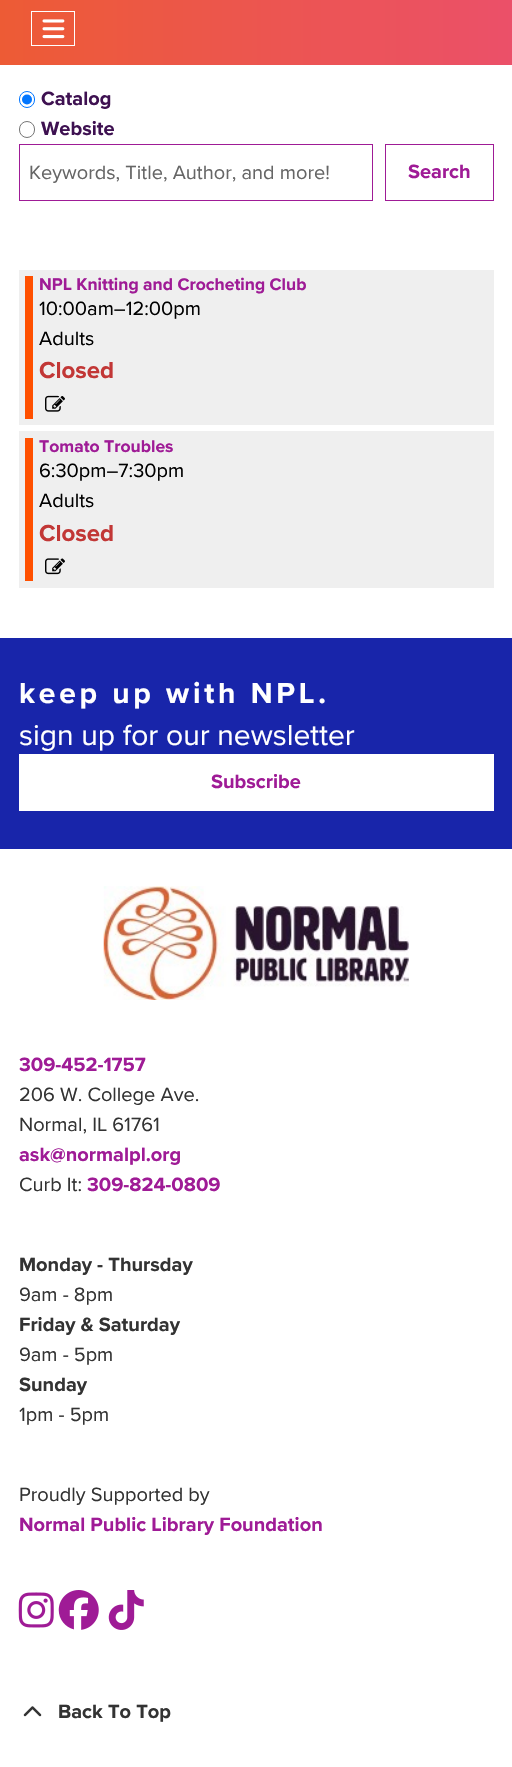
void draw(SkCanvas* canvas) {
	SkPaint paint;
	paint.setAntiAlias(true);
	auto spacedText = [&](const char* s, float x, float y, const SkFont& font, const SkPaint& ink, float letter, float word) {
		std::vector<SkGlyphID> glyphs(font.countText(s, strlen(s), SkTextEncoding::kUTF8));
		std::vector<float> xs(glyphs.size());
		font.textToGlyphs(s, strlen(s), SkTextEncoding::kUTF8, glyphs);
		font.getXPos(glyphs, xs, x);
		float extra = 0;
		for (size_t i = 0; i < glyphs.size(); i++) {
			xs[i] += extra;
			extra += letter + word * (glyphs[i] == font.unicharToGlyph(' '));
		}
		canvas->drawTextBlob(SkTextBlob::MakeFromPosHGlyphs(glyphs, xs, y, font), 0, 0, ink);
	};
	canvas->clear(0xffffffff);
	{
		const SkColor colors[] = {0xffed5b35, 0xffeb5069};
		const float stops[] = {0, 1};
		const SkPoint ends[] = {{0, -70}, {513, -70}};
		paint.setShader(SkGradientShader::MakeLinear(ends, colors, stops, 2, SkTileMode::kClamp));
		paint.setAlpha(255);
	}
	canvas->drawRect(SkRect::MakeXYWH(0, 0, 512, 65), paint);
	paint.setStroke(true);
	paint.setStrokeWidth(1);
	paint.setShader(nullptr);
	paint.setColor(0xffffffff);
	canvas->drawRect(SkRect::MakeXYWH(31.5, 11.5, 43, 34), paint);
	canvas->drawImageRect(SkImages::DeferredFromEncodedData(SkData::MakeFromFileName("img1.png")), SkRect::MakeXYWH(42, 19, 23, 20), SkSamplingOptions());
	paint.setColor(0xff0075ff);
	canvas->drawRoundRect(SkRect::MakeXYWH(19.5, 91.5, 15, 16), 7.5, 7.5, paint);
	paint.setStroke(false);
	canvas->drawCircle(27, 99.5, 5, paint);
	SkFont f1(fontMgr->matchFamilyStyle("Proxima Nova", SkFontStyle::Bold()), 20);
	f1.setSubpixel(true);
	paint.setColor(0xff3e1151);
	canvas->drawString("Catalog", 41, 105, f1, paint);
	paint.setStroke(true);
	paint.setColor(0xff767676);
	canvas->drawRoundRect(SkRect::MakeXYWH(19.5, 121.5, 15, 16), 7.5, 7.5, paint);
	paint.setStroke(false);
	paint.setColor(0xff3e1151);
	canvas->drawString("Website", 41, 135, f1, paint);
	paint.setStroke(true);
	paint.setColor(0xff9f1b96);
	canvas->drawRect(SkRect::MakeXYWH(19.5, 144.5, 353, 56), paint);
	SkFont f2(fontMgr->matchFamilyStyle("Proxima Nova", SkFontStyle::Normal()), 20);
	f2.setSubpixel(true);
	paint.setStroke(false);
	paint.setColor(0xff666666);
	canvas->drawString("Keywords, Title, Author, and more!", 29, 179, f2, paint);
	paint.setStroke(true);
	paint.setColor(0xff9f1b96);
	canvas->drawRect(SkRect::MakeXYWH(385.5, 144.5, 108, 56), paint);
	paint.setStroke(false);
	canvas->drawString("Search", 408, 178, f1, paint);
	paint.setColor(0xffefefef);
	canvas->drawRect(SkRect::MakeXYWH(19, 270, 475, 155), paint);
	paint.setColor(0xffff5000);
	canvas->drawRect(SkRect::MakeXYWH(25, 276, 8, 143), paint);
	SkFont f3(fontMgr->matchFamilyStyle("Proxima Nova", SkFontStyle::Bold()), 17.5);
	f3.setSubpixel(true);
	paint.setColor(0xff9f1b96);
	canvas->drawString("NPL Knitting and Crocheting Club", 39, 290, f3, paint);
	paint.setColor(0xff000000);
	canvas->drawString("10:00am–12:00pm", 39, 315, f2, paint);
	canvas->drawString("Adults", 39, 345, f2, paint);
	SkFont f4(fontMgr->matchFamilyStyle("Proxima Nova", SkFontStyle::Bold()), 24);
	f4.setSubpixel(true);
	paint.setColor(0xffc23736);
	canvas->drawString("Closed", 39, 378, f4, paint);
	canvas->drawImageRect(SkImages::DeferredFromEncodedData(SkData::MakeFromFileName("img2.png")), SkRect::MakeXYWH(45, 395, 20, 17), SkSamplingOptions());
	paint.setColor(0xffefefef);
	canvas->drawRect(SkRect::MakeXYWH(19, 431, 475, 157), paint);
	paint.setColor(0xffff5000);
	canvas->drawRect(SkRect::MakeXYWH(25, 438, 8, 143), paint);
	paint.setColor(0xff9f1b96);
	canvas->drawString("Tomato Troubles", 39, 452, f3, paint);
	paint.setColor(0xff000000);
	canvas->drawString("6:30pm–7:30pm", 39, 477, f2, paint);
	canvas->drawString("Adults", 39, 507, f2, paint);
	paint.setColor(0xffc23736);
	canvas->drawString("Closed", 39, 541, f4, paint);
	canvas->drawImageRect(SkImages::DeferredFromEncodedData(SkData::MakeFromFileName("img3.png")), SkRect::MakeXYWH(45, 558, 20, 17), SkSamplingOptions());
	paint.setColor(0xff1825aa);
	canvas->drawRect(SkRect::MakeXYWH(0, 638, 512, 211), paint);
	SkFont f5(fontMgr->matchFamilyStyle("Proxima Nova", SkFontStyle::Bold()), 30);
	f5.setSubpixel(true);
	paint.setColor(0xffffffff);
	spacedText("keep up with NPL.", 19, 703, f5, paint, 3.75, 0);
	SkFont f6(fontMgr->matchFamilyStyle("Proxima Nova", SkFontStyle::Normal()), 30);
	f6.setSubpixel(true);
	canvas->drawString("sign up for our newsletter", 19, 745, f6, paint);
	canvas->drawRect(SkRect::MakeXYWH(19, 754, 475, 57), paint);
	paint.setColor(0xff9f1b96);
	canvas->drawString("Subscribe", 211, 788, f1, paint);
	canvas->drawImageRect(SkImages::DeferredFromEncodedData(SkData::MakeFromFileName("img4.png")), SkRect::MakeXYWH(103, 886, 306, 114), SkSamplingOptions());
	canvas->drawString("309-452-1757", 19, 1071, f1, paint);
	paint.setColor(0xff333333);
	canvas->drawString("206 W. College Ave.", 19, 1101, f2, paint);
	canvas->drawString("Normal, IL 61761", 19, 1131, f2, paint);
	paint.setColor(0xff9f1b96);
	canvas->drawString("ask@normalpl.org", 19, 1161, f1, paint);
	paint.setColor(0xff333333);
	canvas->drawString("Curb It:", 19, 1191, f2, paint);
	paint.setColor(0xff9f1b96);
	canvas->drawString("309-824-0809", 87, 1191, f1, paint);
	paint.setColor(0xff333333);
	canvas->drawString("Monday - Thursday", 19, 1271, f1, paint);
	canvas->drawString("9am - 8pm", 19, 1301, f2, paint);
	canvas->drawString("Friday & Saturday", 19, 1331, f1, paint);
	canvas->drawString("9am - 5pm", 19, 1361, f2, paint);
	canvas->drawString("Sunday", 19, 1391, f1, paint);
	canvas->drawString("1pm - 5pm", 19, 1421, f2, paint);
	canvas->drawString("Proudly Supported by", 19, 1501, f2, paint);
	paint.setColor(0xff9f1b96);
	canvas->drawString("Normal Public Library Foundation", 19, 1531, f1, paint);
	canvas->drawImageRect(SkImages::DeferredFromEncodedData(SkData::MakeFromFileName("img5.png")), SkRect::MakeXYWH(18, 1592, 36, 36), SkSamplingOptions());
	canvas->drawImageRect(SkImages::DeferredFromEncodedData(SkData::MakeFromFileName("img6.png")), SkRect::MakeXYWH(58, 1590, 41, 40), SkSamplingOptions());
	canvas->drawImageRect(SkImages::DeferredFromEncodedData(SkData::MakeFromFileName("img7.png")), SkRect::MakeXYWH(108, 1590, 36, 40), SkSamplingOptions());
	canvas->drawImageRect(SkImages::DeferredFromEncodedData(SkData::MakeFromFileName("img8.png")), SkRect::MakeXYWH(23, 1706, 19, 11), SkSamplingOptions());
	paint.setColor(0xff333333);
	canvas->drawString("Back To Top", 58, 1718, f1, paint);
}
